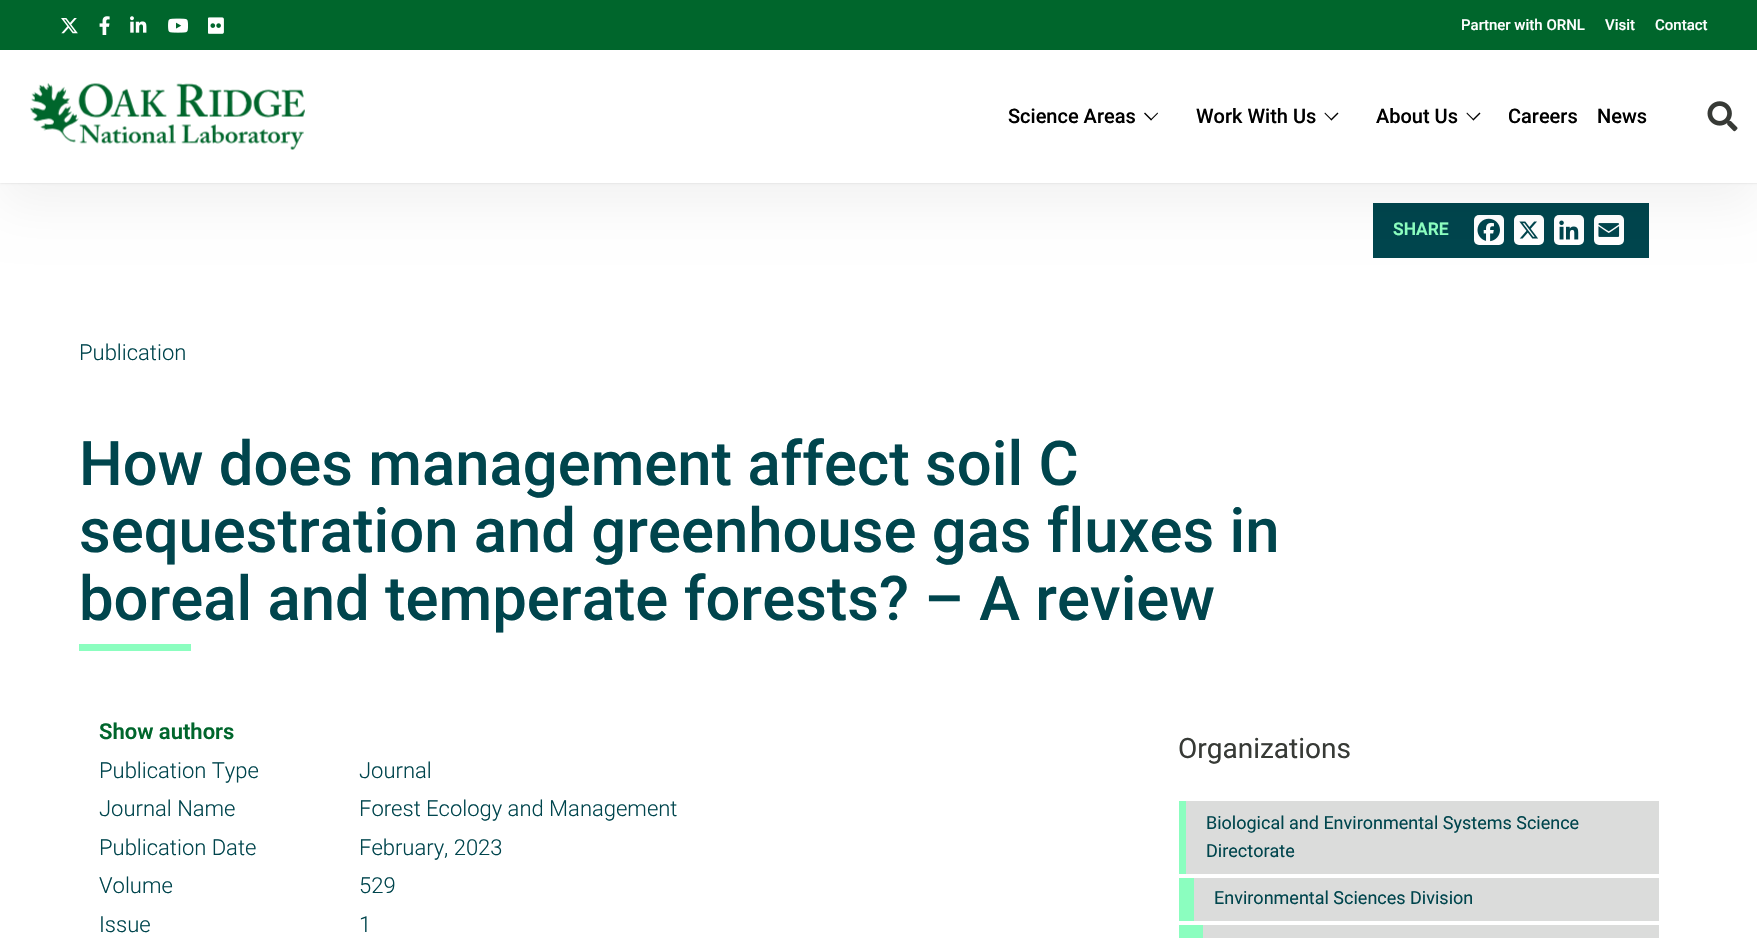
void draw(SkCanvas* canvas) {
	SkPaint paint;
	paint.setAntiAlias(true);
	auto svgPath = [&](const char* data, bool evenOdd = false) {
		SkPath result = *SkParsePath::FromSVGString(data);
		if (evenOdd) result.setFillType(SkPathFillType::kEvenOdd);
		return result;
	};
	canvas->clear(0xffffffff);
	paint.setColor(0xff00454d);
	canvas->drawRect(SkRect::MakeXYWH(1373, 203, 276, 55), paint);
	paint.setColor(0xffffffff);
	canvas->drawRoundRect(SkRect::MakeXYWH(1474, 215, 30, 30), 5, 5, paint);
	canvas->drawImageRect(SkImages::DeferredFromEncodedData(SkData::MakeFromFileName("img8.png")), SkRect::MakeXYWH(1477, 218, 23, 24), SkSamplingOptions());
	canvas->drawRoundRect(SkRect::MakeXYWH(1514, 215, 30, 30), 5, 5, paint);
	canvas->drawImageRect(SkImages::DeferredFromEncodedData(SkData::MakeFromFileName("img9.png")), SkRect::MakeXYWH(1519, 221, 19, 18), SkSamplingOptions());
	canvas->drawRoundRect(SkRect::MakeXYWH(1554, 215, 30, 30), 5, 5, paint);
	canvas->drawImageRect(SkImages::DeferredFromEncodedData(SkData::MakeFromFileName("img10.png")), SkRect::MakeXYWH(1559, 220, 20, 20), SkSamplingOptions());
	canvas->drawRoundRect(SkRect::MakeXYWH(1594, 215, 30, 30), 5, 5, paint);
	canvas->drawImageRect(SkImages::DeferredFromEncodedData(SkData::MakeFromFileName("img11.png")), SkRect::MakeXYWH(1598, 223, 22, 14), SkSamplingOptions());
	paint.setColor(0x0d000000);
	paint.setMaskFilter(SkMaskFilter::MakeBlur(kNormal_SkBlurStyle, 25));
	canvas->drawRect(SkRect::MakeXYWH(0, 73, 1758, 132), paint);
	paint.setMaskFilter(nullptr);
	paint.setColor(0x24000000);
	paint.setMaskFilter(SkMaskFilter::MakeBlur(kNormal_SkBlurStyle, 1));
	canvas->drawRect(SkRect::MakeXYWH(0, 50, 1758, 133), paint);
	paint.setMaskFilter(nullptr);
	paint.setColor(0xff00662c);
	canvas->drawRect(SkRect::MakeXYWH(0, 0, 1757, 50), paint);
	canvas->drawImageRect(SkImages::DeferredFromEncodedData(SkData::MakeFromFileName("img1.png")), SkRect::MakeXYWH(61, 18, 17, 16), SkSamplingOptions());
	canvas->drawImageRect(SkImages::DeferredFromEncodedData(SkData::MakeFromFileName("img2.png")), SkRect::MakeXYWH(99, 16, 11, 19), SkSamplingOptions());
	canvas->drawImageRect(SkImages::DeferredFromEncodedData(SkData::MakeFromFileName("img3.png")), SkRect::MakeXYWH(130, 16, 17, 17), SkSamplingOptions());
	canvas->drawImageRect(SkImages::DeferredFromEncodedData(SkData::MakeFromFileName("img4.png")), SkRect::MakeXYWH(168, 18, 20, 15), SkSamplingOptions());
	canvas->drawImageRect(SkImages::DeferredFromEncodedData(SkData::MakeFromFileName("img5.png")), SkRect::MakeXYWH(208, 17, 16, 17), SkSamplingOptions());
	SkFont f1(fontMgr->matchFamilyStyle("Roboto", SkFontStyle(500, SkFontStyle::kNormal_Width, SkFontStyle::kUpright_Slant)), 15);
	f1.setSubpixel(true);
	paint.setColor(0xffffffff);
	canvas->drawString("Partner with ORNL", 1461, 30, f1, paint);
	canvas->drawString("Visit", 1605, 30, f1, paint);
	canvas->drawString("Contact", 1655, 30, f1, paint);
	canvas->drawRect(SkRect::MakeXYWH(0, 50, 1757, 133), paint);
	canvas->drawImageRect(SkImages::DeferredFromEncodedData(SkData::MakeFromFileName("img6.png")), SkRect::MakeXYWH(30, 83, 275, 67), SkSamplingOptions());
	SkFont f2(fontMgr->matchFamilyStyle("Roboto", SkFontStyle(500, SkFontStyle::kNormal_Width, SkFontStyle::kUpright_Slant)), 20);
	f2.setSubpixel(true);
	paint.setColor(0xff000000);
	canvas->drawString("Science Areas", 1008, 123, f2, paint);
	canvas->drawPath(svgPath("M1150.5 119.5L1157.5 112.5L1158 113.5L1151 120.5Z"), paint);
	canvas->drawPath(svgPath("M1145 112.5L1152 119.5L1151 120.5L1144 113.5Z"), paint);
	canvas->drawString("Work With Us", 1196, 123, f2, paint);
	canvas->drawPath(svgPath("M1330.5 119.5L1337.5 112.5L1338.5 113.5L1331.5 120.5Z"), paint);
	canvas->drawPath(svgPath("M1325 112.5L1332 119.5L1331.5 120.5L1324.5 113.5Z"), paint);
	canvas->drawString("About Us", 1376, 123, f2, paint);
	canvas->drawPath(svgPath("M1472.5 119.5L1479.5 112.5L1480.5 113.5L1473.5 120.5Z"), paint);
	canvas->drawPath(svgPath("M1467 112.5L1474 119.5L1473.5 120.5L1466.5 113.5Z"), paint);
	canvas->drawString("Careers", 1508, 123, f2, paint);
	canvas->drawString("News", 1597, 123, f2, paint);
	canvas->drawImageRect(SkImages::DeferredFromEncodedData(SkData::MakeFromFileName("img7.png")), SkRect::MakeXYWH(1707, 101, 31, 31), SkSamplingOptions());
	SkFont f3(fontMgr->matchFamilyStyle("Roboto", SkFontStyle(600, SkFontStyle::kNormal_Width, SkFontStyle::kUpright_Slant)), 17.5);
	f3.setSubpixel(true);
	paint.setColor(0xff8bfebf);
	canvas->drawString("SHARE", 1393, 235, f3, paint);
	SkFont f4(fontMgr->matchFamilyStyle("Roboto", SkFontStyle(300, SkFontStyle::kNormal_Width, SkFontStyle::kUpright_Slant)), 22);
	f4.setSubpixel(true);
	paint.setColor(0xff00454d);
	canvas->drawString("Publication", 79, 360, f4, paint);
	SkFont f5(fontMgr->matchFamilyStyle("Roboto", SkFontStyle(500, SkFontStyle::kNormal_Width, SkFontStyle::kUpright_Slant)), 61.6);
	f5.setSubpixel(true);
	canvas->drawString("How does management affect soil C", 79, 485, f5, paint);
	canvas->drawString("sequestration and greenhouse gas fluxes in", 79, 552, f5, paint);
	canvas->drawString("boreal and temperate forests? – A review", 79, 620, f5, paint);
	paint.setColor(0xff8bfebf);
	canvas->drawRect(SkRect::MakeXYWH(79, 644, 112, 7), paint);
	SkFont f6(fontMgr->matchFamilyStyle("Roboto", SkFontStyle(600, SkFontStyle::kNormal_Width, SkFontStyle::kUpright_Slant)), 22);
	f6.setSubpixel(true);
	paint.setColor(0xff00662c);
	canvas->drawString("Show authors", 99, 739, f6, paint);
	paint.setColor(0xff00454d);
	canvas->drawString("Publication Type", 99, 778, f4, paint);
	canvas->drawString("Journal", 359, 778, f4, paint);
	canvas->drawString("Journal Name", 99, 816, f4, paint);
	canvas->drawString("Forest Ecology and Management", 359, 816, f4, paint);
	canvas->drawString("Publication Date", 99, 855, f4, paint);
	canvas->drawString("February, 2023", 359, 855, f4, paint);
	canvas->drawString("Volume", 99, 893, f4, paint);
	canvas->drawString("529", 359, 893, f4, paint);
	canvas->drawString("Issue", 99, 932, f4, paint);
	canvas->drawString("1", 359, 932, f4, paint);
	SkFont f7(fontMgr->matchFamilyStyle("Roboto", SkFontStyle::Normal()), 28);
	f7.setSubpixel(true);
	paint.setColor(0xff373a36);
	canvas->drawString("Organizations", 1178, 758, f7, paint);
	paint.setColor(0xff8bfebf);
	canvas->drawRect(SkRect::MakeXYWH(1179, 801, 7, 73), paint);
	paint.setColor(0xffdbdcdb);
	canvas->drawRect(SkRect::MakeXYWH(1186, 801, 473, 73), paint);
	SkFont f8(fontMgr->matchFamilyStyle("Roboto", SkFontStyle::Normal()), 18);
	f8.setSubpixel(true);
	paint.setColor(0xff00454d);
	canvas->drawString("Biological and Environmental Systems Science", 1206, 829, f8, paint);
	canvas->drawString("Directorate", 1206, 857, f8, paint);
	paint.setColor(0xff8bfebf);
	canvas->drawRect(SkRect::MakeXYWH(1179, 878, 15, 43), paint);
	paint.setColor(0xffdbdcdb);
	canvas->drawRect(SkRect::MakeXYWH(1194, 878, 465, 43), paint);
	paint.setColor(0xff00454d);
	canvas->drawString("Environmental Sciences Division", 1214, 904, f8, paint);
	paint.setColor(0xff8bfebf);
	canvas->drawRect(SkRect::MakeXYWH(1179, 925, 24, 13), paint);
	paint.setColor(0xffdbdcdb);
	canvas->drawRect(SkRect::MakeXYWH(1203, 925, 456, 13), paint);
}
